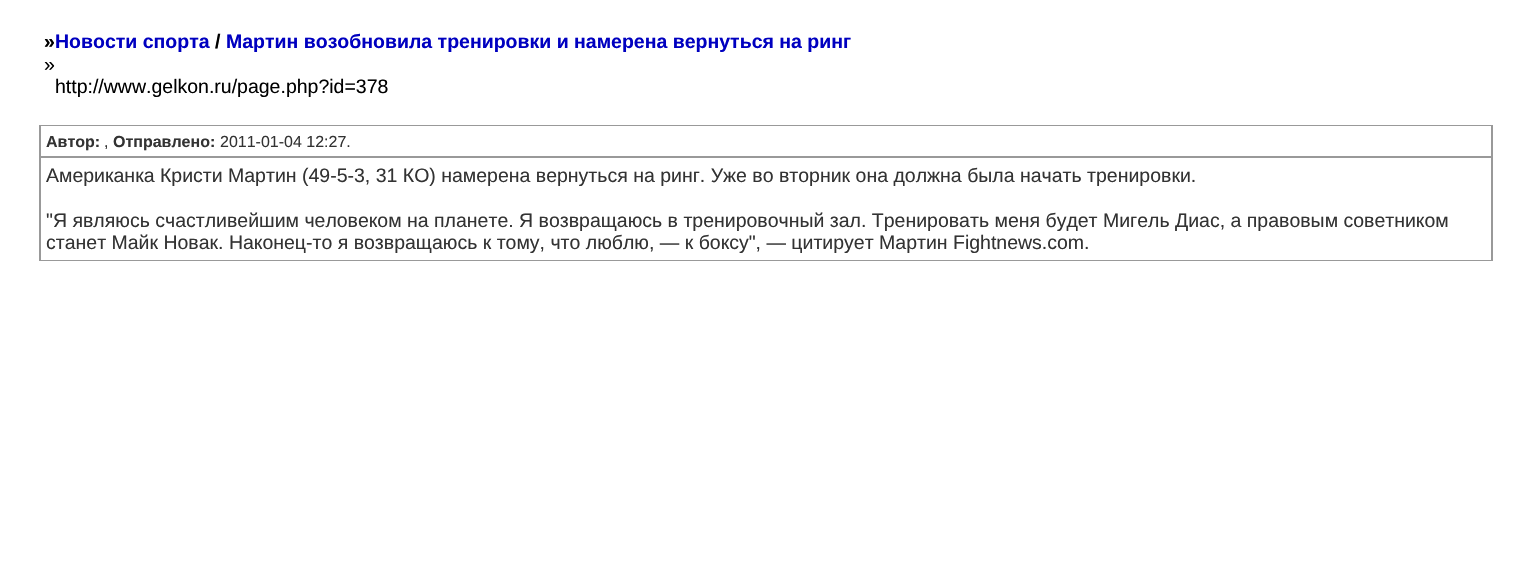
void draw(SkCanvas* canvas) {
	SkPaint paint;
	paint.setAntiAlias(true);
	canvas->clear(0xffffffff);
	SkFont f1(fontMgr->matchFamilyStyle("Liberation Sans", SkFontStyle::Bold()), 19.5);
	f1.setSubpixel(true);
	paint.setColor(0xff000000);
	canvas->drawString("»", 44, 48, f1, paint);
	paint.setColor(0xff0000c0);
	canvas->drawString("Новости спорта", 55, 48, f1, paint);
	paint.setColor(0xff000000);
	canvas->drawString("/", 215, 48, f1, paint);
	paint.setColor(0xff0000c0);
	canvas->drawString("Мартин возобновила тренировки и намерена вернуться на ринг", 226, 48, f1, paint);
	SkFont f2(fontMgr->matchFamilyStyle("Liberation Sans", SkFontStyle::Normal()), 19.5);
	f2.setSubpixel(true);
	paint.setColor(0xff000000);
	canvas->drawString("»", 44, 71, f2, paint);
	canvas->drawString("http://www.gelkon.ru/page.php?id=378", 55, 93, f2, paint);
	paint.setColor(0xff999999);
	canvas->drawRect(SkRect::MakeXYWH(39, 125, 1454, 136), paint);
	paint.setColor(0xffffffff);
	canvas->drawRect(SkRect::MakeXYWH(41, 126, 1450, 30), paint);
	SkFont f3(fontMgr->matchFamilyStyle("Liberation Sans", SkFontStyle::Bold()), 16);
	f3.setSubpixel(true);
	paint.setColor(0xff333333);
	canvas->drawString("Автор:", 46, 147, f3, paint);
	SkFont f4(fontMgr->matchFamilyStyle("Liberation Sans", SkFontStyle::Normal()), 16);
	f4.setSubpixel(true);
	canvas->drawString(",", 104, 147, f4, paint);
	canvas->drawString("Отправлено:", 113, 147, f3, paint);
	canvas->drawString("2011-01-04 12:27.", 220, 147, f4, paint);
	paint.setColor(0xffffffff);
	canvas->drawRect(SkRect::MakeXYWH(41, 158, 1450, 102), paint);
	paint.setColor(0xff333333);
	canvas->drawString("Американка Кристи Мартин (49-5-3, 31 КО) намерена вернуться на ринг. Уже во вторник она должна была начать тренировки.", 46, 182, f2, paint);
	canvas->drawString("\"Я являюсь счастливейшим человеком на планете. Я возвращаюсь в тренировочный зал. Тренировать меня будет Мигель Диас, а правовым советником", 46, 227, f2, paint);
	canvas->drawString("станет Майк Новак. Наконец-то я возвращаюсь к тому, что люблю, — к боксу\", — цитирует Мартин Fightnews.com.", 46, 249, f2, paint);
}
